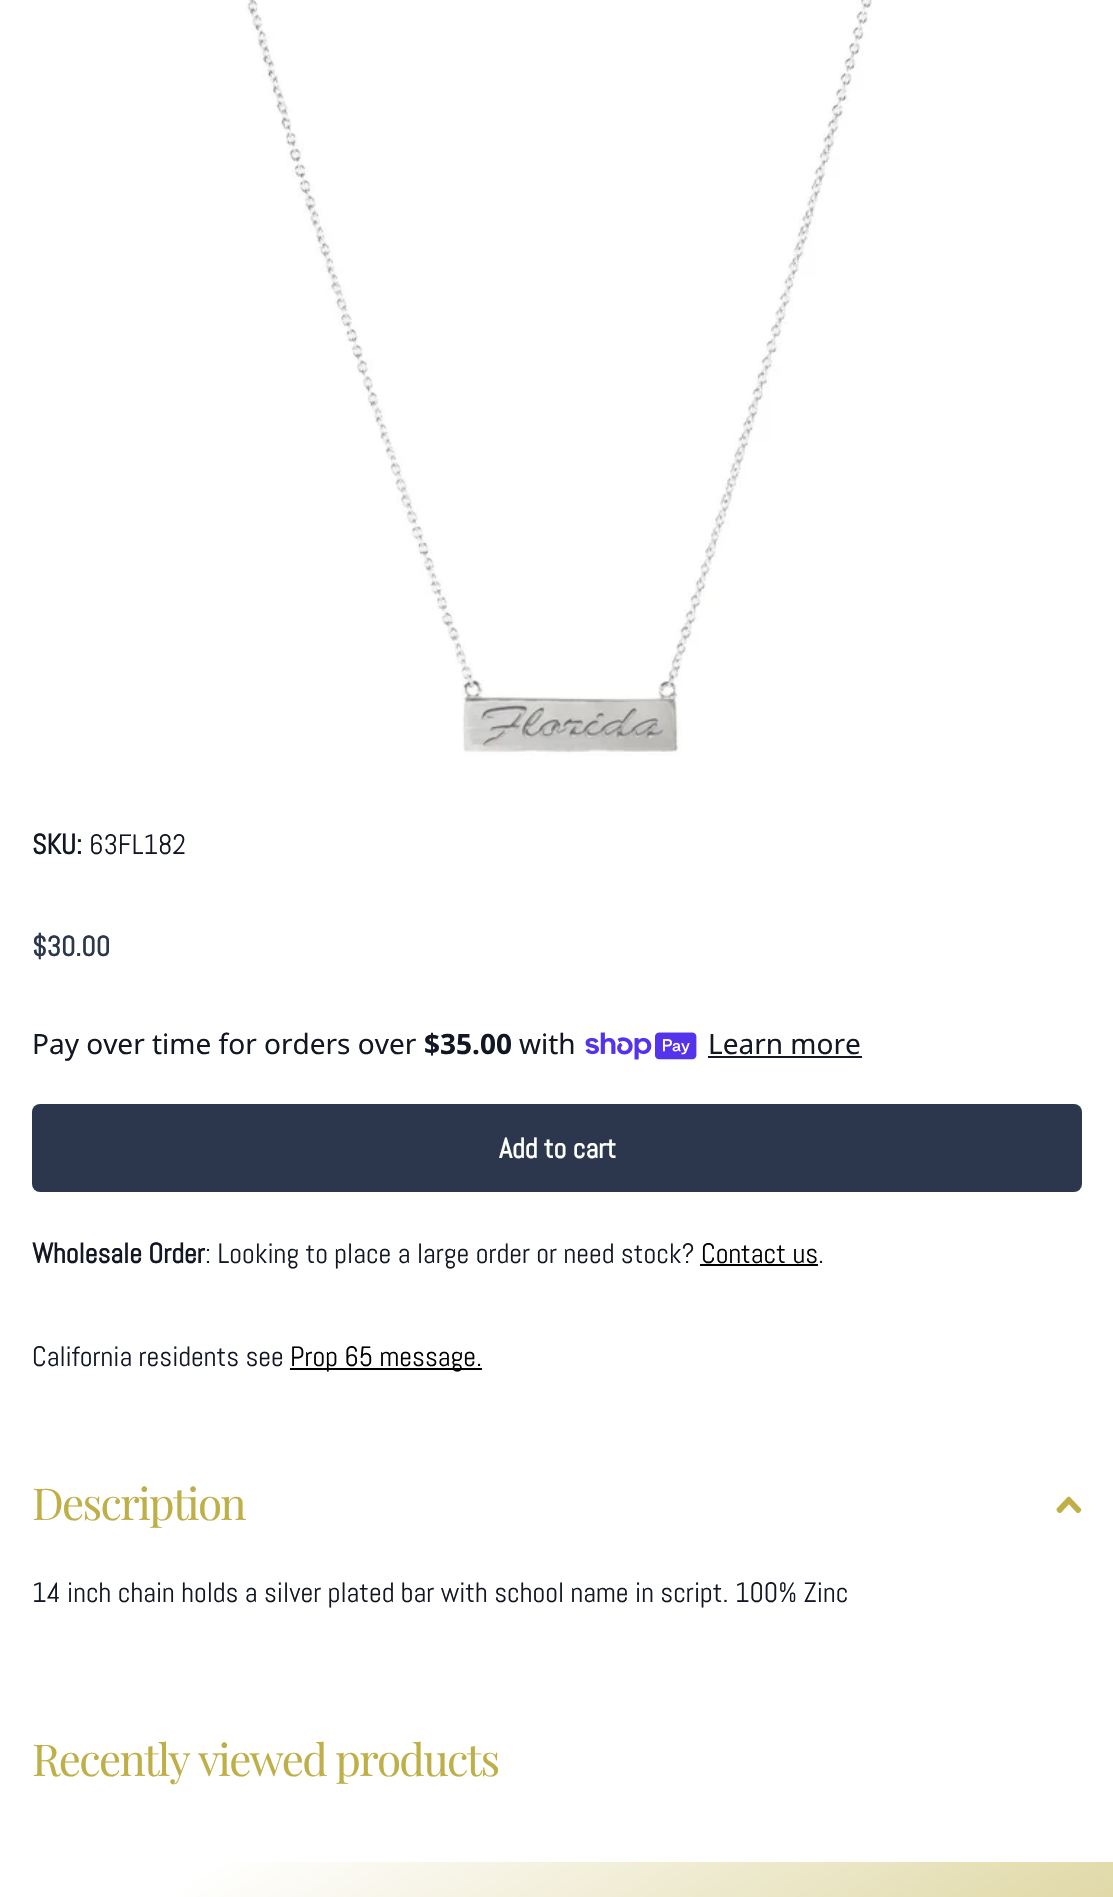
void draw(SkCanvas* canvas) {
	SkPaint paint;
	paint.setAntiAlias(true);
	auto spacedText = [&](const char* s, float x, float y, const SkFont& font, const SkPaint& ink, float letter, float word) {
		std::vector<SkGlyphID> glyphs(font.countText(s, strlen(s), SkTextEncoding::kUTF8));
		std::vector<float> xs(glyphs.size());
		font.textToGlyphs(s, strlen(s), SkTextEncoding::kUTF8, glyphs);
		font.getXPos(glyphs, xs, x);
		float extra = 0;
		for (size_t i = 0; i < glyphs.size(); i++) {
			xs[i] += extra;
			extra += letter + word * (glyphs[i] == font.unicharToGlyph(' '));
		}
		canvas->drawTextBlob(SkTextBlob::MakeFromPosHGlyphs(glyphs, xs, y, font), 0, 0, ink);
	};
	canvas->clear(0xffffffff);
	canvas->drawImageRect(SkImages::DeferredFromEncodedData(SkData::MakeFromFileName("img1.png")), SkRect::MakeXYWH(246, 0, 626, 756), SkSamplingOptions());
	SkFont f1(fontMgr->matchFamilyStyle("Abel", SkFontStyle::Bold()), 28);
	f1.setSubpixel(true);
	paint.setColor(0xff121723);
	canvas->drawString("SKU:", 32, 854, f1, paint);
	SkFont f2(fontMgr->matchFamilyStyle("Abel", SkFontStyle::Normal()), 28);
	f2.setSubpixel(true);
	canvas->drawString("63FL182", 89, 854, f2, paint);
	paint.setColor(0xff2c374d);
	canvas->drawString("$30.00", 32, 956, f1, paint);
	SkFont f3(fontMgr->matchFamilyStyle("Noto Sans", SkFontStyle::Normal()), 28);
	f3.setSubpixel(true);
	paint.setColor(0xff121723);
	canvas->drawString("Pay over time for orders over", 32, 1054, f3, paint);
	SkFont f4(fontMgr->matchFamilyStyle("Noto Sans", SkFontStyle::Bold()), 28);
	f4.setSubpixel(true);
	canvas->drawString("$35.00", 424, 1054, f4, paint);
	canvas->drawString("with", 519, 1054, f3, paint);
	canvas->drawImageRect(SkImages::DeferredFromEncodedData(SkData::MakeFromFileName("img2.png")), SkRect::MakeXYWH(585, 1032, 112, 28), SkSamplingOptions());
	canvas->drawString("Learn more", 708, 1054, f3, paint);
	canvas->drawRect(SkRect::MakeXYWH(708, 1056, 154, 2), paint);
	paint.setColor(0xff2c374d);
	canvas->drawRoundRect(SkRect::MakeXYWH(32, 1104, 1050, 88), 8, 8, paint);
	paint.setColor(0xffffffff);
	canvas->drawString("Add to cart", 499, 1158, f1, paint);
	paint.setColor(0xff121723);
	canvas->drawString("Wholesale Order", 32, 1263, f1, paint);
	canvas->drawString(": Looking to place a large order or need stock?", 205, 1263, f2, paint);
	paint.setColor(0xff000000);
	canvas->drawString("Contact us", 701, 1263, f2, paint);
	canvas->drawRect(SkRect::MakeXYWH(700, 1264, 118, 2), paint);
	paint.setColor(0xff121723);
	canvas->drawString(".", 818, 1263, f2, paint);
	canvas->drawString("California residents see", 32, 1366, f2, paint);
	paint.setColor(0xff000000);
	canvas->drawRect(SkRect::MakeXYWH(290, 1368, 192, 2), paint);
	canvas->drawString("Prop 65 message.", 290, 1366, f2, paint);
	SkFont f5(fontMgr->matchFamilyStyle("Playfair Display", SkFontStyle::Normal()), 44);
	f5.setSubpixel(true);
	paint.setColor(0xffbfaf48);
	spacedText("Description", 32, 1520, f5, paint, -1.75, 0);
	canvas->drawImageRect(SkImages::DeferredFromEncodedData(SkData::MakeFromFileName("img3.png")), SkRect::MakeXYWH(1056, 1496, 26, 18), SkSamplingOptions());
	paint.setColor(0xff121723);
	canvas->drawString("14 inch chain holds a silver plated bar with school name in script. 100% Zinc", 32, 1602, f2, paint);
	paint.setColor(0xffbfaf48);
	spacedText("Recently viewed products", 32, 1776, f5, paint, -1.75, 0);
	{
		const SkColor colors[] = {0xffffffff, 0xffbfaf48};
		const float stops[] = {0.12, 1};
		const SkPoint ends[] = {{257, 1674}, {857, 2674}};
		paint.setShader(SkGradientShader::MakeLinear(ends, colors, stops, 2, SkTileMode::kClamp));
		paint.setAlpha(255);
	}
	canvas->drawRect(SkRect::MakeXYWH(185, 1862, 928, 35), paint);
}
